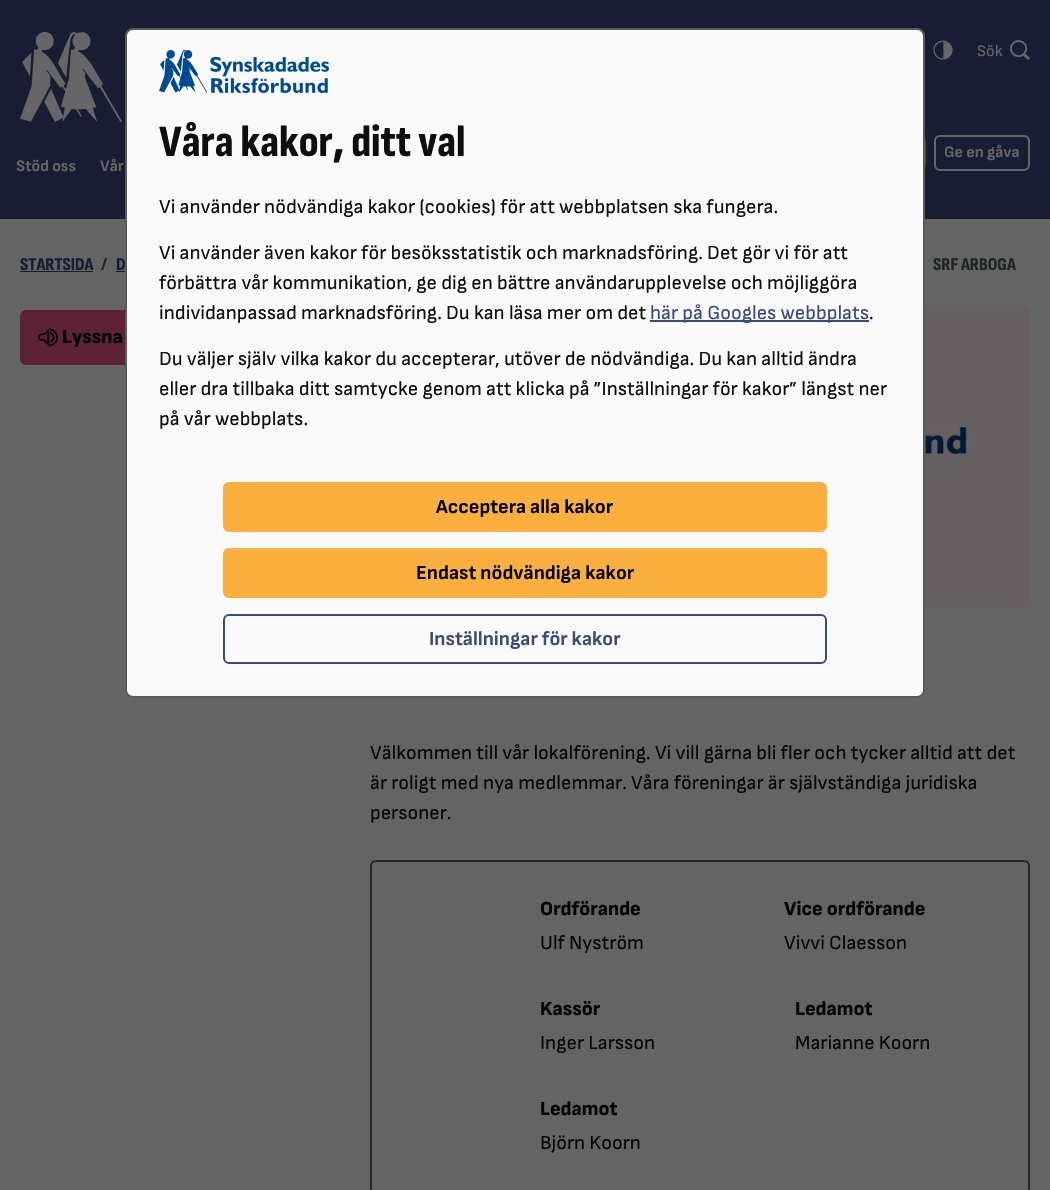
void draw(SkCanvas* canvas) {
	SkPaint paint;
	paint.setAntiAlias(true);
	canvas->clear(0xff646464);
	paint.setColor(0xff181d34);
	canvas->drawRect(SkRect::MakeXYWH(0, 0, 1050, 219), paint);
	canvas->drawImageRect(SkImages::DeferredFromEncodedData(SkData::MakeFromFileName("img1.png")), SkRect::MakeXYWH(20, 32, 102, 91), SkSamplingOptions());
	canvas->drawImageRect(SkImages::DeferredFromEncodedData(SkData::MakeFromFileName("img2.png")), SkRect::MakeXYWH(933, 40, 20, 20), SkSamplingOptions());
	SkFont f1(fontMgr->matchFamilyStyle("Sofia Sans", SkFontStyle::Normal()), 16);
	f1.setSubpixel(true);
	paint.setColor(0xff666666);
	canvas->drawString("Sök", 977, 56, f1, paint);
	canvas->drawImageRect(SkImages::DeferredFromEncodedData(SkData::MakeFromFileName("img3.png")), SkRect::MakeXYWH(1010, 40, 20, 20), SkSamplingOptions());
	paint.setStroke(true);
	paint.setStrokeWidth(2);
	paint.setColor(0xff644619);
	canvas->drawRoundRect(SkRect::MakeXYWH(830, 136, 95, 34), 5, 5, paint);
	paint.setColor(0xff666666);
	canvas->drawRoundRect(SkRect::MakeXYWH(935, 136, 94, 34), 5, 5, paint);
	SkFont f2(fontMgr->matchFamilyStyle("Sofia Sans", SkFontStyle::Bold()), 16);
	f2.setSubpixel(true);
	paint.setStroke(false);
	canvas->drawString("Ge en gåva", 944, 157, f2, paint);
	canvas->drawString("Stöd oss", 16, 171, f2, paint);
	canvas->drawString("Vår", 100, 171, f2, paint);
	paint.setColor(0xff5d2235);
	canvas->drawRoundRect(SkRect::MakeXYWH(21, 311, 119, 53), 5, 5, paint);
	paint.setStroke(true);
	canvas->drawRoundRect(SkRect::MakeXYWH(21, 311, 119, 53), 5, 5, paint);
	paint.setStroke(false);
	paint.setColor(0xfffafafa);
	canvas->drawRoundRect(SkRect::MakeXYWH(126, 29, 798, 668), 7, 7, paint);
	paint.setStroke(true);
	paint.setColor(0xff58595b);
	canvas->drawRoundRect(SkRect::MakeXYWH(126, 29, 798, 668), 7, 7, paint);
	canvas->drawImageRect(SkImages::DeferredFromEncodedData(SkData::MakeFromFileName("img4.png")), SkRect::MakeXYWH(159, 50, 170, 43), SkSamplingOptions());
	SkFont f3(fontMgr->matchFamilyStyle("Sofia Sans Condensed", SkFontStyle(800, SkFontStyle::kNormal_Width, SkFontStyle::kUpright_Slant)), 44.75);
	f3.setSubpixel(true);
	paint.setStroke(false);
	paint.setColor(0xff0e0e0f);
	canvas->drawString("Våra kakor, ditt val", 159, 156, f3, paint);
	SkFont f4(fontMgr->matchFamilyStyle("Sofia Sans", SkFontStyle::Normal()), 20);
	f4.setSubpixel(true);
	canvas->drawString("Vi använder nödvändiga kakor (cookies) för att webbplatsen ska fungera.", 159, 213, f4, paint);
	canvas->drawString("Vi använder även kakor för besöksstatistik och marknadsföring. Det gör vi för att", 159, 259, f4, paint);
	canvas->drawString("förbättra vår kommunikation, ge dig en bättre användarupplevelse och möjliggöra", 159, 289, f4, paint);
	canvas->drawString("individanpassad marknadsföring. Du kan läsa mer om det", 159, 319, f4, paint);
	paint.setColor(0xff3c4981);
	canvas->drawRect(SkRect::MakeXYWH(650, 320, 219, 2), paint);
	canvas->drawString("här på Googles webbplats", 650, 319, f4, paint);
	paint.setColor(0xff0e0e0f);
	canvas->drawString(".", 869, 319, f4, paint);
	canvas->drawString("Du väljer själv vilka kakor du accepterar, utöver de nödvändiga. Du kan alltid ändra", 159, 365, f4, paint);
	canvas->drawString("eller dra tillbaka ditt samtycke genom att klicka på ”Inställningar för kakor” längst ner", 159, 395, f4, paint);
	canvas->drawString("på vår webbplats.", 159, 425, f4, paint);
	paint.setColor(0xfffaaf3f);
	canvas->drawRoundRect(SkRect::MakeXYWH(224, 483, 602, 48), 5, 5, paint);
	paint.setStroke(true);
	canvas->drawRoundRect(SkRect::MakeXYWH(224, 483, 602, 48), 5, 5, paint);
	SkFont f5(fontMgr->matchFamilyStyle("Sofia Sans", SkFontStyle::Bold()), 20);
	f5.setSubpixel(true);
	paint.setStroke(false);
	paint.setColor(0xff000000);
	canvas->drawString("Acceptera alla kakor", 436, 513, f5, paint);
	paint.setColor(0xfffaaf3f);
	canvas->drawRoundRect(SkRect::MakeXYWH(224, 549, 602, 48), 5, 5, paint);
	paint.setStroke(true);
	canvas->drawRoundRect(SkRect::MakeXYWH(224, 549, 602, 48), 5, 5, paint);
	paint.setStroke(false);
	paint.setColor(0xff000000);
	canvas->drawString("Endast nödvändiga kakor", 416, 579, f5, paint);
	paint.setStroke(true);
	paint.setColor(0xff3c4981);
	canvas->drawRoundRect(SkRect::MakeXYWH(224, 615, 602, 48), 5, 5, paint);
	paint.setStroke(false);
	canvas->drawString("Inställningar för kakor", 429, 645, f5, paint);
	SkFont f6(fontMgr->matchFamilyStyle("Sofia Sans Condensed", SkFontStyle(800, SkFontStyle::kNormal_Width, SkFontStyle::kUpright_Slant)), 18);
	f6.setSubpixel(true);
	paint.setColor(0xff181d34);
	canvas->drawString("STARTSIDA", 20, 270, f6, paint);
	canvas->drawRect(SkRect::MakeXYWH(20, 271, 73, 1), paint);
	paint.setColor(0xff232424);
	canvas->drawString("/", 101, 270, f6, paint);
	paint.setColor(0xff181d34);
	canvas->drawString("D", 116, 270, f6, paint);
	canvas->drawRect(SkRect::MakeXYWH(116, 271, 9, 1), paint);
	paint.setColor(0xff232424);
	canvas->drawString("SRF ARBOGA", 933, 270, f6, paint);
	canvas->drawImageRect(SkImages::DeferredFromEncodedData(SkData::MakeFromFileName("img5.png")), SkRect::MakeXYWH(38, 328, 20, 19), SkSamplingOptions());
	SkFont f7(fontMgr->matchFamilyStyle("Sofia Sans", SkFontStyle(800, SkFontStyle::kNormal_Width, SkFontStyle::kUpright_Slant)), 20);
	f7.setSubpixel(true);
	paint.setColor(0xff000000);
	canvas->drawString("Lyssna", 62, 343, f7, paint);
	canvas->drawImageRect(SkImages::DeferredFromEncodedData(SkData::MakeFromFileName("img6.png")), SkRect::MakeXYWH(925, 305, 105, 303), SkSamplingOptions());
	paint.setColor(0xff060606);
	canvas->drawString("Välkommen till vår lokalförening. Vi vill gärna bli fler och tycker alltid att det", 370, 759, f4, paint);
	canvas->drawString("är roligt med nya medlemmar. Våra föreningar är självständiga juridiska", 370, 789, f4, paint);
	canvas->drawString("personer.", 370, 819, f4, paint);
	paint.setStroke(true);
	paint.setColor(0xff232424);
	canvas->drawRoundRect(SkRect::MakeXYWH(371, 861, 658, 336), 5, 5, paint);
	paint.setStroke(false);
	paint.setColor(0xff060606);
	canvas->drawString("Ordförande", 540, 915, f7, paint);
	canvas->drawString("Ulf Nyström", 540, 949, f4, paint);
	canvas->drawString("Vice ordförande", 784, 915, f7, paint);
	canvas->drawString("Vivvi Claesson", 784, 949, f4, paint);
	canvas->drawString("Kassör", 540, 1015, f7, paint);
	canvas->drawString("Inger Larsson", 540, 1049, f4, paint);
	canvas->drawString("Ledamot", 795, 1015, f7, paint);
	canvas->drawString("Marianne Koorn", 795, 1049, f4, paint);
	canvas->drawString("Ledamot", 540, 1115, f7, paint);
	canvas->drawString("Björn Koorn", 540, 1149, f4, paint);
}
